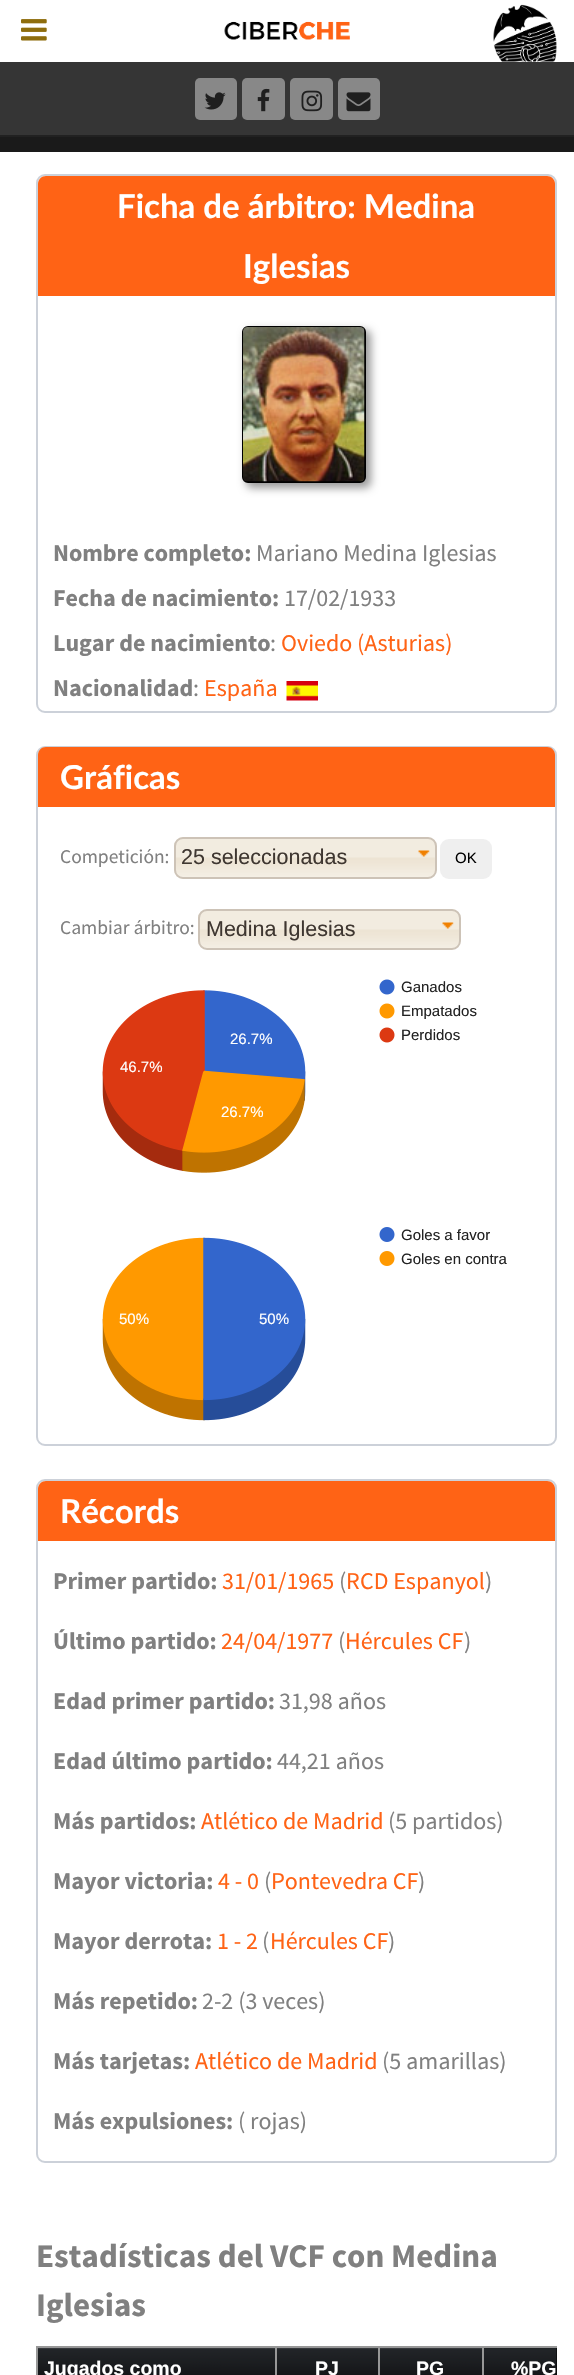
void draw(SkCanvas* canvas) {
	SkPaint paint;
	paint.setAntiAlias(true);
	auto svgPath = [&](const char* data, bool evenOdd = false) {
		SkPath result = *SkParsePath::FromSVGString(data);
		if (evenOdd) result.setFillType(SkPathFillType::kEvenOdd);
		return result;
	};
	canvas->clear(0xffffffff);
	canvas->drawImageRect(SkImages::DeferredFromEncodedData(SkData::MakeFromFileName("img1.png")), SkRect::MakeXYWH(21, 19, 26, 22), SkSamplingOptions());
	canvas->drawImageRect(SkImages::DeferredFromEncodedData(SkData::MakeFromFileName("img2.png")), SkRect::MakeXYWH(224, 21, 126, 19), SkSamplingOptions());
	canvas->drawImageRect(SkImages::DeferredFromEncodedData(SkData::MakeFromFileName("img3.png")), SkRect::MakeXYWH(493, 4, 64, 58), SkSamplingOptions());
	paint.setColor(0xff353535);
	canvas->drawRect(SkRect::MakeXYWH(0, 62, 574, 73), paint);
	paint.setColor(0xff212121);
	canvas->drawRect(SkRect::MakeXYWH(0, 135, 574, 2), paint);
	paint.setColor(0xff888888);
	canvas->drawRoundRect(SkRect::MakeXYWH(195, 78, 42, 42), 5, 5, paint);
	canvas->drawImageRect(SkImages::DeferredFromEncodedData(SkData::MakeFromFileName("img4.png")), SkRect::MakeXYWH(204, 92, 22, 18), SkSamplingOptions());
	canvas->drawRoundRect(SkRect::MakeXYWH(242, 78, 43, 42), 5, 5, paint);
	canvas->drawImageRect(SkImages::DeferredFromEncodedData(SkData::MakeFromFileName("img5.png")), SkRect::MakeXYWH(257, 88, 13, 24), SkSamplingOptions());
	canvas->drawRoundRect(SkRect::MakeXYWH(290, 78, 43, 42), 5, 5, paint);
	canvas->drawImageRect(SkImages::DeferredFromEncodedData(SkData::MakeFromFileName("img6.png")), SkRect::MakeXYWH(301, 90, 22, 22), SkSamplingOptions());
	canvas->drawRoundRect(SkRect::MakeXYWH(338, 78, 42, 42), 5, 5, paint);
	canvas->drawImageRect(SkImages::DeferredFromEncodedData(SkData::MakeFromFileName("img7.png")), SkRect::MakeXYWH(346, 92, 25, 20), SkSamplingOptions());
	paint.setColor(0xff1a1a1a);
	canvas->drawRect(SkRect::MakeXYWH(0, 137, 574, 15), paint);
	paint.setStroke(true);
	paint.setStrokeWidth(2);
	paint.setColor(0xffccd1d9);
	canvas->drawRoundRect(SkRect::MakeXYWH(37, 175, 519, 537), 8, 8, paint);
	paint.setStroke(false);
	paint.setColor(0xffff6315);
	canvas->drawPath(svgPath("M46 176H547C551.5 176 555 179.5 555 184V296H38V184C38 179.5 41.5 176 46 176Z"), paint);
	SkFont f1(fontMgr->matchFamilyStyle("Lato", SkFontStyle::Bold()), 33);
	f1.setSubpixel(true);
	paint.setColor(0xffffffff);
	canvas->drawString("Ficha de árbitro: Medina", 117, 218, f1, paint);
	canvas->drawString("Iglesias", 243, 278, f1, paint);
	paint.setColor(0xff999999);
	paint.setMaskFilter(SkMaskFilter::MakeBlur(kNormal_SkBlurStyle, 4));
	canvas->drawRoundRect(SkRect::MakeXYWH(246, 330, 125, 158), 6, 6, paint);
	paint.setMaskFilter(nullptr);
	paint.setStroke(true);
	paint.setColor(0xff000000);
	canvas->drawRoundRect(SkRect::MakeXYWH(243, 327, 122, 155), 5, 5, paint);
	canvas->drawImageRect(SkImages::DeferredFromEncodedData(SkData::MakeFromFileName("img8.png")), SkRect::MakeXYWH(243, 327, 122, 155), SkSamplingOptions());
	SkFont f2(fontMgr->matchFamilyStyle("Source Sans Pro", SkFontStyle::Bold()), 24);
	f2.setSubpixel(true);
	paint.setStroke(false);
	paint.setColor(0xff808080);
	canvas->drawString("Nombre completo:", 53, 561, f2, paint);
	SkFont f3(fontMgr->matchFamilyStyle("Source Sans Pro", SkFontStyle::Normal()), 24);
	f3.setSubpixel(true);
	canvas->drawString("Mariano Medina Iglesias", 256, 561, f3, paint);
	canvas->drawString("Fecha de nacimiento:", 53, 606, f2, paint);
	canvas->drawString("17/02/1933", 284, 606, f3, paint);
	canvas->drawString("Lugar de nacimiento", 53, 651, f2, paint);
	canvas->drawString(":", 270, 651, f3, paint);
	paint.setColor(0xffff6315);
	canvas->drawString("Oviedo (Asturias)", 281, 651, f3, paint);
	paint.setColor(0xff808080);
	canvas->drawString("Nacionalidad", 53, 696, f2, paint);
	canvas->drawString(":", 193, 696, f3, paint);
	paint.setColor(0xffff6315);
	canvas->drawString("España", 204, 696, f3, paint);
	canvas->drawImageRect(SkImages::DeferredFromEncodedData(SkData::MakeFromFileName("img9.png")), SkRect::MakeXYWH(286, 681, 32, 20), SkSamplingOptions());
	paint.setStroke(true);
	paint.setColor(0xffccd1d9);
	canvas->drawRoundRect(SkRect::MakeXYWH(37, 747, 519, 698), 8, 8, paint);
	paint.setStroke(false);
	paint.setColor(0xffff6315);
	canvas->drawPath(svgPath("M46 747H547C551.5 747 555 750.5 555 755V807H38V755C38 750.5 41.5 747 46 747Z"), paint);
	paint.setColor(0xffffffff);
	canvas->drawString("Gráficas", 60, 789, f1, paint);
	SkFont f4(fontMgr->matchFamilyStyle("Source Sans Pro", SkFontStyle::Normal()), 19.5);
	f4.setSubpixel(true);
	paint.setColor(0xff808080);
	canvas->drawString("Competición:", 60, 863, f4, paint);
	canvas->drawImageRect(SkImages::DeferredFromEncodedData(SkData::MakeFromFileName("img10.png")), SkRect::MakeXYWH(174, 837, 262, 42), SkSamplingOptions());
	paint.setStroke(true);
	paint.setColor(0xffcdc3b7);
	canvas->drawRoundRect(SkRect::MakeXYWH(175, 838, 261, 40), 8, 8, paint);
	SkFont f5(fontMgr->matchFamilyStyle("Liberation Sans", SkFontStyle::Normal()), 21.5);
	f5.setSubpixel(true);
	paint.setStroke(false);
	paint.setColor(0xff3f3731);
	canvas->drawString("25 seleccionadas", 181, 864, f5, paint);
	canvas->drawImageRect(SkImages::DeferredFromEncodedData(SkData::MakeFromFileName("img11.png")), SkRect::MakeXYWH(418, 850, 12, 7), SkSamplingOptions());
	paint.setColor(0xffefefef);
	canvas->drawRoundRect(SkRect::MakeXYWH(440, 839, 52, 40), 9, 9, paint);
	SkFont f6(fontMgr->matchFamilyStyle("Liberation Sans", SkFontStyle::Normal()), 15);
	f6.setSubpixel(true);
	paint.setColor(0xff000000);
	canvas->drawString("OK", 455, 863, f6, paint);
	paint.setColor(0xff808080);
	canvas->drawString("Cambiar árbitro:", 60, 934, f4, paint);
	canvas->drawImageRect(SkImages::DeferredFromEncodedData(SkData::MakeFromFileName("img12.png")), SkRect::MakeXYWH(198, 909, 262, 41), SkSamplingOptions());
	paint.setStroke(true);
	paint.setColor(0xffcdc3b7);
	canvas->drawRoundRect(SkRect::MakeXYWH(199, 910, 261, 39), 8, 8, paint);
	paint.setStroke(false);
	paint.setColor(0xff3f3731);
	canvas->drawString("Medina Iglesias", 206, 936, f5, paint);
	canvas->drawImageRect(SkImages::DeferredFromEncodedData(SkData::MakeFromFileName("img11.png")), SkRect::MakeXYWH(442, 922, 12, 7), SkSamplingOptions());
	canvas->drawImageRect(SkImages::DeferredFromEncodedData(SkData::MakeFromFileName("img13.png")), SkRect::MakeXYWH(102, 979, 293, 194), SkSamplingOptions());
	paint.setColor(0xff222222);
	canvas->drawString("Ganados", 401, 992, f6, paint);
	canvas->drawString("Empatados", 401, 1016, f6, paint);
	paint.setColor(0xffffffff);
	canvas->drawString("26.7%", 230, 1044, f6, paint);
	paint.setColor(0xff222222);
	canvas->drawString("Perdidos", 401, 1040, f6, paint);
	paint.setColor(0xffffffff);
	canvas->drawString("46.7%", 120, 1072, f6, paint);
	canvas->drawString("26.7%", 221, 1117, f6, paint);
	canvas->drawImageRect(SkImages::DeferredFromEncodedData(SkData::MakeFromFileName("img14.png")), SkRect::MakeXYWH(102, 1227, 293, 194), SkSamplingOptions());
	paint.setColor(0xff222222);
	canvas->drawString("Goles a favor", 401, 1240, f6, paint);
	canvas->drawString("Goles en contra", 401, 1264, f6, paint);
	paint.setColor(0xffffffff);
	canvas->drawString("50%", 119, 1324, f6, paint);
	canvas->drawString("50%", 259, 1324, f6, paint);
	paint.setStroke(true);
	paint.setColor(0xffccd1d9);
	canvas->drawRoundRect(SkRect::MakeXYWH(37, 1480, 519, 682), 8, 8, paint);
	paint.setStroke(false);
	paint.setColor(0xffff6315);
	canvas->drawPath(svgPath("M46 1481H547C551.5 1481 555 1484.5 555 1489V1541H38V1489C38 1484.5 41.5 1481 46 1481Z"), paint);
	paint.setColor(0xffffffff);
	canvas->drawString("Récords", 60, 1523, f1, paint);
	paint.setColor(0xff808080);
	canvas->drawString("Primer partido:", 53, 1589, f2, paint);
	paint.setColor(0xffff6315);
	canvas->drawString("31/01/1965", 222, 1589, f3, paint);
	paint.setColor(0xff808080);
	canvas->drawString("(", 339, 1589, f3, paint);
	paint.setColor(0xffff6315);
	canvas->drawString("RCD Espanyol", 346, 1589, f3, paint);
	paint.setColor(0xff808080);
	canvas->drawString(")", 485, 1589, f3, paint);
	canvas->drawString("Último partido:", 53, 1649, f2, paint);
	paint.setColor(0xffff6315);
	canvas->drawString("24/04/1977", 221, 1649, f3, paint);
	paint.setColor(0xff808080);
	canvas->drawString("(", 338, 1649, f3, paint);
	paint.setColor(0xffff6315);
	canvas->drawString("Hércules CF", 345, 1649, f3, paint);
	paint.setColor(0xff808080);
	canvas->drawString(")", 464, 1649, f3, paint);
	canvas->drawString("Edad primer partido:", 53, 1709, f2, paint);
	canvas->drawString("31,98 años", 279, 1709, f3, paint);
	canvas->drawString("Edad último partido:", 53, 1769, f2, paint);
	canvas->drawString("44,21 años", 277, 1769, f3, paint);
	canvas->drawString("Más partidos:", 53, 1829, f2, paint);
	paint.setColor(0xffff6315);
	canvas->drawString("Atlético de Madrid", 201, 1829, f3, paint);
	paint.setColor(0xff808080);
	canvas->drawString("(5 partidos)", 388, 1829, f3, paint);
	canvas->drawString("Mayor victoria:", 53, 1889, f2, paint);
	paint.setColor(0xffff6315);
	canvas->drawString("4 - 0", 218, 1889, f3, paint);
	paint.setColor(0xff808080);
	canvas->drawString("(", 264, 1889, f3, paint);
	paint.setColor(0xffff6315);
	canvas->drawString("Pontevedra CF", 271, 1889, f3, paint);
	paint.setColor(0xff808080);
	canvas->drawString(")", 418, 1889, f3, paint);
	canvas->drawString("Mayor derrota:", 53, 1949, f2, paint);
	paint.setColor(0xffff6315);
	canvas->drawString("1 - 2", 217, 1949, f3, paint);
	paint.setColor(0xff808080);
	canvas->drawString("(", 262, 1949, f3, paint);
	paint.setColor(0xffff6315);
	canvas->drawString("Hércules CF", 270, 1949, f3, paint);
	paint.setColor(0xff808080);
	canvas->drawString(")", 388, 1949, f3, paint);
	canvas->drawString("Más repetido:", 53, 2009, f2, paint);
	canvas->drawString("2-2 (3 veces)", 202, 2009, f3, paint);
	canvas->drawString("Más tarjetas:", 53, 2069, f2, paint);
	paint.setColor(0xffff6315);
	canvas->drawString("Atlético de Madrid", 195, 2069, f3, paint);
	paint.setColor(0xff808080);
	canvas->drawString("(5 amarillas)", 382, 2069, f3, paint);
	canvas->drawString("Más expulsiones:", 53, 2129, f2, paint);
	canvas->drawString("( rojas)", 238, 2129, f3, paint);
	SkFont f7(fontMgr->matchFamilyStyle("Source Sans Pro", SkFontStyle::Bold()), 33);
	f7.setSubpixel(true);
	canvas->drawString("Estadísticas del VCF con Medina", 36, 2267, f7, paint);
	canvas->drawString("Iglesias", 36, 2316, f7, paint);
	paint.setColor(0xff979797);
	canvas->drawRect(SkRect::MakeXYWH(36, 2346, 521, 2), paint);
	canvas->drawRect(SkRect::MakeXYWH(36, 2346, 2, 29), paint);
	canvas->drawImageRect(SkImages::DeferredFromEncodedData(SkData::MakeFromFileName("img15.png")), SkRect::MakeXYWH(38, 2348, 237, 27), SkSamplingOptions());
	SkFont f8(fontMgr->matchFamilyStyle("Liberation Sans", SkFontStyle::Bold()), 19.5);
	f8.setSubpixel(true);
	paint.setColor(0xffffffff);
	canvas->drawString("Jugados como", 44, 2375, f8, paint);
	canvas->drawImageRect(SkImages::DeferredFromEncodedData(SkData::MakeFromFileName("img16.png")), SkRect::MakeXYWH(277, 2348, 101, 27), SkSamplingOptions());
	paint.setColor(0xff979797);
	canvas->drawRect(SkRect::MakeXYWH(275, 2346, 2, 29), paint);
	paint.setColor(0xffffffff);
	canvas->drawString("PJ", 315, 2375, f8, paint);
	canvas->drawImageRect(SkImages::DeferredFromEncodedData(SkData::MakeFromFileName("img17.png")), SkRect::MakeXYWH(380, 2348, 102, 27), SkSamplingOptions());
	paint.setColor(0xff979797);
	canvas->drawRect(SkRect::MakeXYWH(378, 2346, 2, 29), paint);
	paint.setColor(0xffffffff);
	canvas->drawString("PG", 416, 2375, f8, paint);
	paint.setColor(0xff000000);
	canvas->drawRect(SkRect::MakeXYWH(484, 2348, 73, 27), paint);
	canvas->drawImageRect(SkImages::DeferredFromEncodedData(SkData::MakeFromFileName("img18.png")), SkRect::MakeXYWH(484, 2348, 73, 27), SkSamplingOptions());
	paint.setColor(0xff979797);
	canvas->drawRect(SkRect::MakeXYWH(482, 2346, 2, 29), paint);
	paint.setColor(0xffffffff);
	canvas->drawString("%PG", 511, 2375, f8, paint);
}
